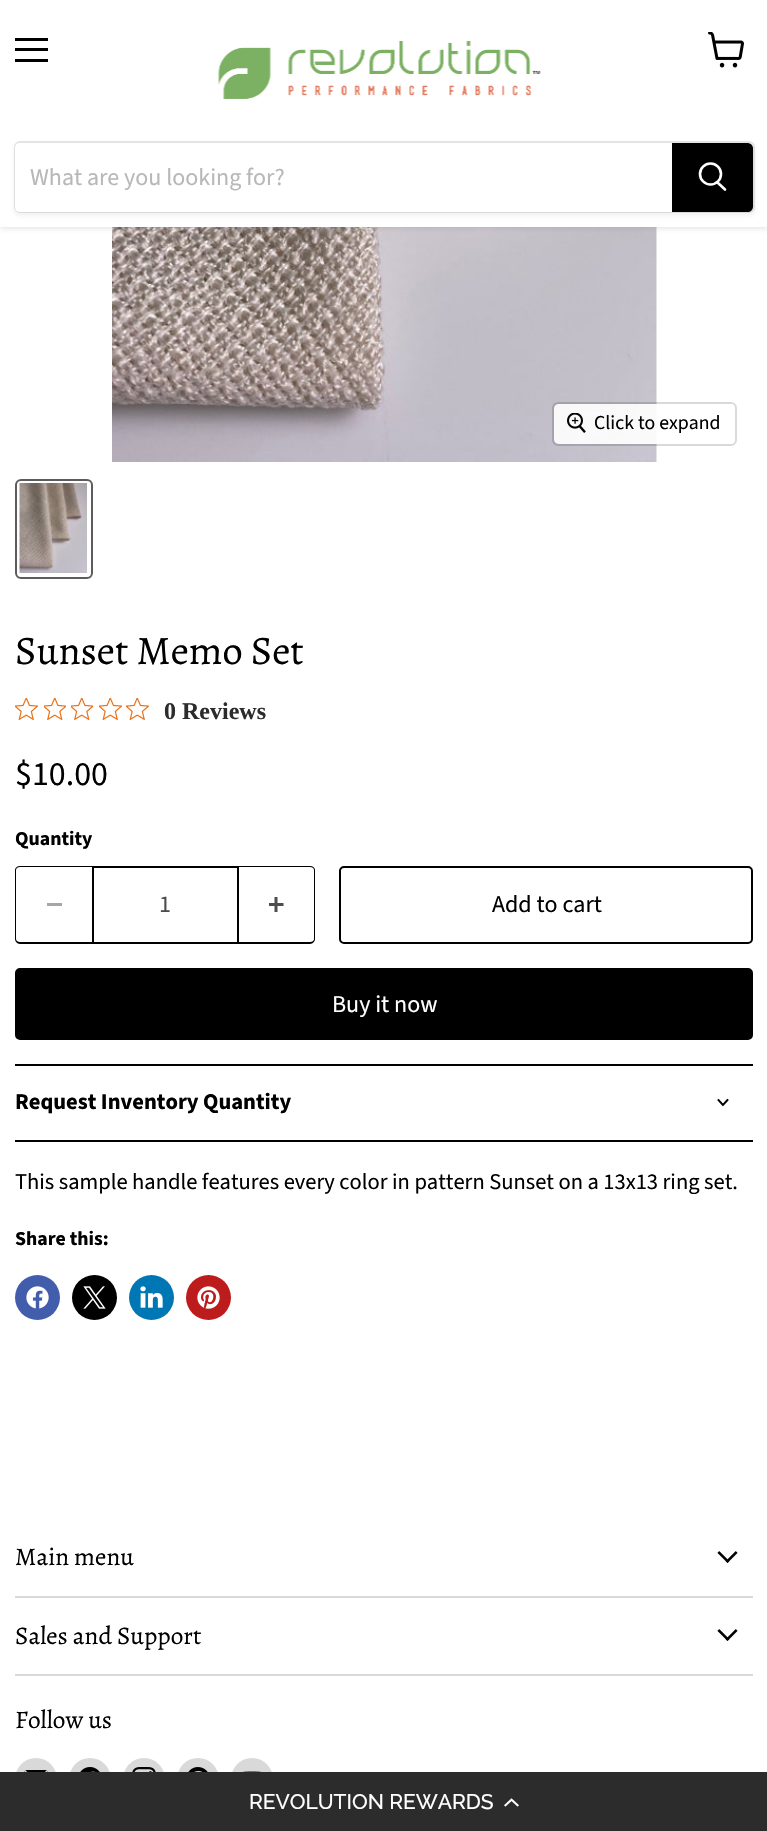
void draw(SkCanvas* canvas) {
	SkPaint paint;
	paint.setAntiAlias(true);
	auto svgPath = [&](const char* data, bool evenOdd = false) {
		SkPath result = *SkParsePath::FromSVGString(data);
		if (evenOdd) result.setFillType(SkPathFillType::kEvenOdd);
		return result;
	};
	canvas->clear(0xffffffff);
	canvas->drawImageRect(SkImages::DeferredFromEncodedData(SkData::MakeFromFileName("img3.png")), SkRect::MakeXYWH(112, 227, 545, 235), SkSamplingOptions());
	paint.setColor(0x40808080);
	paint.setMaskFilter(SkMaskFilter::MakeBlur(kNormal_SkBlurStyle, 3));
	canvas->drawRect(SkRect::MakeXYWH(0, 2, 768, 226), paint);
	paint.setMaskFilter(nullptr);
	paint.setColor(0xffffffff);
	canvas->drawRect(SkRect::MakeXYWH(0, 0, 767, 227), paint);
	paint.setColor(0xff000000);
	canvas->drawRect(SkRect::MakeXYWH(15, 38, 33, 3), paint);
	canvas->drawRect(SkRect::MakeXYWH(15, 48, 33, 3), paint);
	canvas->drawRect(SkRect::MakeXYWH(15, 59, 33, 3), paint);
	canvas->drawImageRect(SkImages::DeferredFromEncodedData(SkData::MakeFromFileName("img1.png")), SkRect::MakeXYWH(708, 32, 36, 36), SkSamplingOptions());
	canvas->drawImageRect(SkImages::DeferredFromEncodedData(SkData::MakeFromFileName("img2.png")), SkRect::MakeXYWH(218, 41, 323, 58), SkSamplingOptions());
	paint.setColor(0x1c808080);
	paint.setMaskFilter(SkMaskFilter::MakeBlur(kNormal_SkBlurStyle, 2));
	canvas->drawRoundRect(SkRect::MakeXYWH(14, 144, 741, 72), 6, 6, paint);
	paint.setMaskFilter(nullptr);
	paint.setStroke(true);
	paint.setStrokeWidth(2);
	paint.setColor(0x33808080);
	canvas->drawRoundRect(SkRect::MakeXYWH(15, 142, 739, 70), 5, 5, paint);
	paint.setStroke(false);
	paint.setColor(0xffffffff);
	canvas->drawPath(svgPath("M20 143H672V212H20C17 212 15 210 15 207V148C15 145 17 143 20 143Z"), paint);
	SkFont f1(fontMgr->matchFamilyStyle("Source Sans Pro", SkFontStyle::Normal()), 24);
	f1.setSubpixel(true);
	paint.setColor(0xffb8b8b8);
	canvas->drawString("What are you looking for?", 30, 185, f1, paint);
	paint.setColor(0xff000000);
	canvas->drawPath(svgPath("M673 144H748C750 144 752 146 752 148V207C752 209 750 211 748 211H673Z"), paint);
	paint.setStroke(true);
	canvas->drawPath(svgPath("M673 144H748C750 144 752 146 752 148V207C752 209 750 211 748 211H673Z"), paint);
	paint.setStrokeWidth(2.6);
	paint.setStrokeCap(SkPaint::kRound_Cap);
	paint.setColor(0xffffffff);
	canvas->drawPath(svgPath("M725 189.5L717.5 182.5"), paint);
	paint.setStrokeCap(SkPaint::kButt_Cap);
	canvas->drawCircle(710.5, 174, 10.5, paint);
	paint.setStrokeWidth(2);
	paint.setColor(0x26000000);
	canvas->drawRoundRect(SkRect::MakeXYWH(553, 403, 183, 42), 5, 5, paint);
	paint.setStroke(false);
	paint.setColor(0xe6ffffff);
	canvas->drawRoundRect(SkRect::MakeXYWH(554, 404, 181, 40), 5, 5, paint);
	canvas->drawImageRect(SkImages::DeferredFromEncodedData(SkData::MakeFromFileName("img4.png")), SkRect::MakeXYWH(567, 413, 19, 20), SkSamplingOptions());
	SkFont f2(fontMgr->matchFamilyStyle("Source Sans Pro", SkFontStyle::Normal()), 19.75);
	f2.setSubpixel(true);
	paint.setColor(0xff000000);
	canvas->drawString("Click to expand", 594, 429, f2, paint);
	paint.setStroke(true);
	paint.setColor(0xff5c5c5c);
	canvas->drawRoundRect(SkRect::MakeXYWH(16, 480, 76, 98), 5, 5, paint);
	canvas->drawImageRect(SkImages::DeferredFromEncodedData(SkData::MakeFromFileName("img5.png")), SkRect::MakeXYWH(19, 483, 68, 90), SkSamplingOptions());
	SkFont f3(fontMgr->matchFamilyStyle("Alegreya", SkFontStyle::Normal()), 40.5);
	f3.setSubpixel(true);
	paint.setStroke(false);
	paint.setColor(0xff000000);
	canvas->drawString("Sunset Memo Set", 15, 664, f3, paint);
	canvas->drawImageRect(SkImages::DeferredFromEncodedData(SkData::MakeFromFileName("img6.png")), SkRect::MakeXYWH(15, 698, 23, 22), SkSamplingOptions());
	canvas->drawImageRect(SkImages::DeferredFromEncodedData(SkData::MakeFromFileName("img7.png")), SkRect::MakeXYWH(44, 698, 22, 22), SkSamplingOptions());
	canvas->drawImageRect(SkImages::DeferredFromEncodedData(SkData::MakeFromFileName("img7.png")), SkRect::MakeXYWH(71, 698, 22, 22), SkSamplingOptions());
	canvas->drawImageRect(SkImages::DeferredFromEncodedData(SkData::MakeFromFileName("img6.png")), SkRect::MakeXYWH(99, 698, 23, 22), SkSamplingOptions());
	canvas->drawImageRect(SkImages::DeferredFromEncodedData(SkData::MakeFromFileName("img6.png")), SkRect::MakeXYWH(126, 698, 23, 22), SkSamplingOptions());
	SkFont f4(fontMgr->matchFamilyStyle("Liberation Serif", SkFontStyle::Bold()), 24);
	f4.setSubpixel(true);
	paint.setColor(0xff2c2c2c);
	canvas->drawString("0 Reviews", 164, 719, f4, paint);
	SkFont f5(fontMgr->matchFamilyStyle("Source Sans Pro", SkFontStyle::Normal()), 34);
	f5.setSubpixel(true);
	paint.setColor(0xff000000);
	canvas->drawString("$10.00", 15, 785, f5, paint);
	SkFont f6(fontMgr->matchFamilyStyle("Source Sans Pro", SkFontStyle::Bold()), 19.75);
	f6.setSubpixel(true);
	canvas->drawString("Quantity", 15, 845, f6, paint);
	canvas->drawPath(svgPath("M20 866H92V944H20C17 944 15 941 15 939V870C15 868 17 866 20 866ZM20 867H92V942H20C18 942 16 941 16 939V870C16 868 18 867 20 867Z", true), paint);
	paint.setColor(0xffa6a6a6);
	canvas->drawRect(SkRect::MakeXYWH(47, 903, 15, 3), paint);
	paint.setStroke(true);
	paint.setColor(0xff000000);
	canvas->drawRect(SkRect::MakeXYWH(93, 867, 145, 76), paint);
	paint.setStroke(false);
	paint.setColor(0xff4d4d4d);
	canvas->drawString("1", 159, 912, f1, paint);
	paint.setColor(0xff000000);
	canvas->drawPath(svgPath("M238 866H310C313 866 315 868 315 870V939C315 941 313 944 310 944H238ZM238 867H310C312 867 314 868 314 870V939C314 941 312 942 310 942H238Z", true), paint);
	canvas->drawImageRect(SkImages::DeferredFromEncodedData(SkData::MakeFromFileName("img8.png")), SkRect::MakeXYWH(269, 897, 15, 15), SkSamplingOptions());
	paint.setStroke(true);
	canvas->drawRoundRect(SkRect::MakeXYWH(340, 867, 412, 76), 4, 4, paint);
	paint.setStroke(false);
	canvas->drawString("Add to cart", 492, 912, f1, paint);
	canvas->drawRoundRect(SkRect::MakeXYWH(16, 969, 736, 70), 4, 4, paint);
	paint.setStroke(true);
	canvas->drawRoundRect(SkRect::MakeXYWH(16, 969, 736, 70), 4, 4, paint);
	paint.setStroke(false);
	paint.setColor(0xffffffff);
	canvas->drawString("Buy it now", 332, 1012, f1, paint);
	paint.setColor(0xff000000);
	canvas->drawRect(SkRect::MakeXYWH(15, 1064, 738, 2), paint);
	canvas->drawRect(SkRect::MakeXYWH(15, 1140, 738, 2), paint);
	SkFont f7(fontMgr->matchFamilyStyle("Source Sans Pro", SkFontStyle::Bold()), 22.5);
	f7.setSubpixel(true);
	canvas->drawString("Request Inventory Quantity", 15, 1109, f7, paint);
	paint.setStroke(true);
	paint.setStrokeWidth(1.9);
	paint.setStrokeCap(SkPaint::kSquare_Cap);
	canvas->drawPath(svgPath("M723 1105L727.5 1100M723 1105L718.5 1100"), paint);
	SkFont f8(fontMgr->matchFamilyStyle("Source Sans Pro", SkFontStyle::Normal()), 22.5);
	f8.setSubpixel(true);
	paint.setStroke(false);
	canvas->drawString("This sample handle features every color in pattern Sunset on a 13x13 ring set.", 15, 1189, f8, paint);
	canvas->drawString("Share this:", 15, 1245, f6, paint);
	paint.setColor(0xff425dab);
	canvas->drawCircle(37.5, 1297.5, 22.5, paint);
	canvas->drawImageRect(SkImages::DeferredFromEncodedData(SkData::MakeFromFileName("img9.png")), SkRect::MakeXYWH(26, 1286, 23, 23), SkSamplingOptions());
	paint.setColor(0xff000000);
	canvas->drawCircle(94.5, 1297.5, 22.5, paint);
	canvas->drawImageRect(SkImages::DeferredFromEncodedData(SkData::MakeFromFileName("img10.png")), SkRect::MakeXYWH(83, 1286, 23, 23), SkSamplingOptions());
	paint.setColor(0xff0077b5);
	canvas->drawCircle(151.5, 1297.5, 22.5, paint);
	canvas->drawImageRect(SkImages::DeferredFromEncodedData(SkData::MakeFromFileName("img11.png")), SkRect::MakeXYWH(140, 1286, 23, 22), SkSamplingOptions());
	paint.setColor(0xffbd1c1c);
	canvas->drawCircle(208.5, 1297.5, 22.5, paint);
	canvas->drawImageRect(SkImages::DeferredFromEncodedData(SkData::MakeFromFileName("img12.png")), SkRect::MakeXYWH(197, 1286, 23, 23), SkSamplingOptions());
	paint.setColor(0xffd9d9d9);
	canvas->drawRect(SkRect::MakeXYWH(15, 1596, 738, 2), paint);
	SkFont f9(fontMgr->matchFamilyStyle("Alegreya", SkFontStyle::Normal()), 25.25);
	f9.setSubpixel(true);
	paint.setColor(0xff000000);
	canvas->drawString("Main menu", 15, 1565, f9, paint);
	canvas->drawImageRect(SkImages::DeferredFromEncodedData(SkData::MakeFromFileName("img13.png")), SkRect::MakeXYWH(717, 1551, 21, 12), SkSamplingOptions());
	paint.setColor(0xffd9d9d9);
	canvas->drawRect(SkRect::MakeXYWH(15, 1674, 738, 2), paint);
	paint.setColor(0xff000000);
	canvas->drawString("Sales and Support", 15, 1644, f9, paint);
	canvas->drawImageRect(SkImages::DeferredFromEncodedData(SkData::MakeFromFileName("img13.png")), SkRect::MakeXYWH(717, 1629, 21, 12), SkSamplingOptions());
	canvas->drawString("Follow us", 15, 1728, f9, paint);
	paint.setColor(0xffd9d9d9);
	canvas->drawCircle(36, 1779, 21, paint);
	canvas->drawImageRect(SkImages::DeferredFromEncodedData(SkData::MakeFromFileName("img14.png")), SkRect::MakeXYWH(24, 1770, 24, 2), SkSamplingOptions());
	canvas->drawCircle(90, 1779, 21, paint);
	canvas->drawImageRect(SkImages::DeferredFromEncodedData(SkData::MakeFromFileName("img15.png")), SkRect::MakeXYWH(80, 1767, 20, 5), SkSamplingOptions());
	canvas->drawCircle(144, 1779, 21, paint);
	canvas->drawImageRect(SkImages::DeferredFromEncodedData(SkData::MakeFromFileName("img16.png")), SkRect::MakeXYWH(132, 1767, 24, 5), SkSamplingOptions());
	canvas->drawCircle(198, 1779, 21, paint);
	canvas->drawImageRect(SkImages::DeferredFromEncodedData(SkData::MakeFromFileName("img17.png")), SkRect::MakeXYWH(188, 1767, 20, 5), SkSamplingOptions());
	canvas->drawCircle(252, 1779, 21, paint);
	canvas->drawImageRect(SkImages::DeferredFromEncodedData(SkData::MakeFromFileName("img18.png")), SkRect::MakeXYWH(243, 1771, 18, 1), SkSamplingOptions());
	paint.setColor(0xff2c2c2c);
	canvas->drawRect(SkRect::MakeXYWH(0, 1772, 767, 59), paint);
	SkFont f10(fontMgr->matchFamilyStyle("Raleway", SkFontStyle(100, SkFontStyle::kNormal_Width, SkFontStyle::kUpright_Slant)), 21);
	f10.setSubpixel(true);
	paint.setColor(0xffffffff);
	canvas->drawString("REVOLUTION REWARDS", 249, 1809, f10, paint);
	canvas->drawImageRect(SkImages::DeferredFromEncodedData(SkData::MakeFromFileName("img19.png")), SkRect::MakeXYWH(504, 1798, 15, 9), SkSamplingOptions());
}
